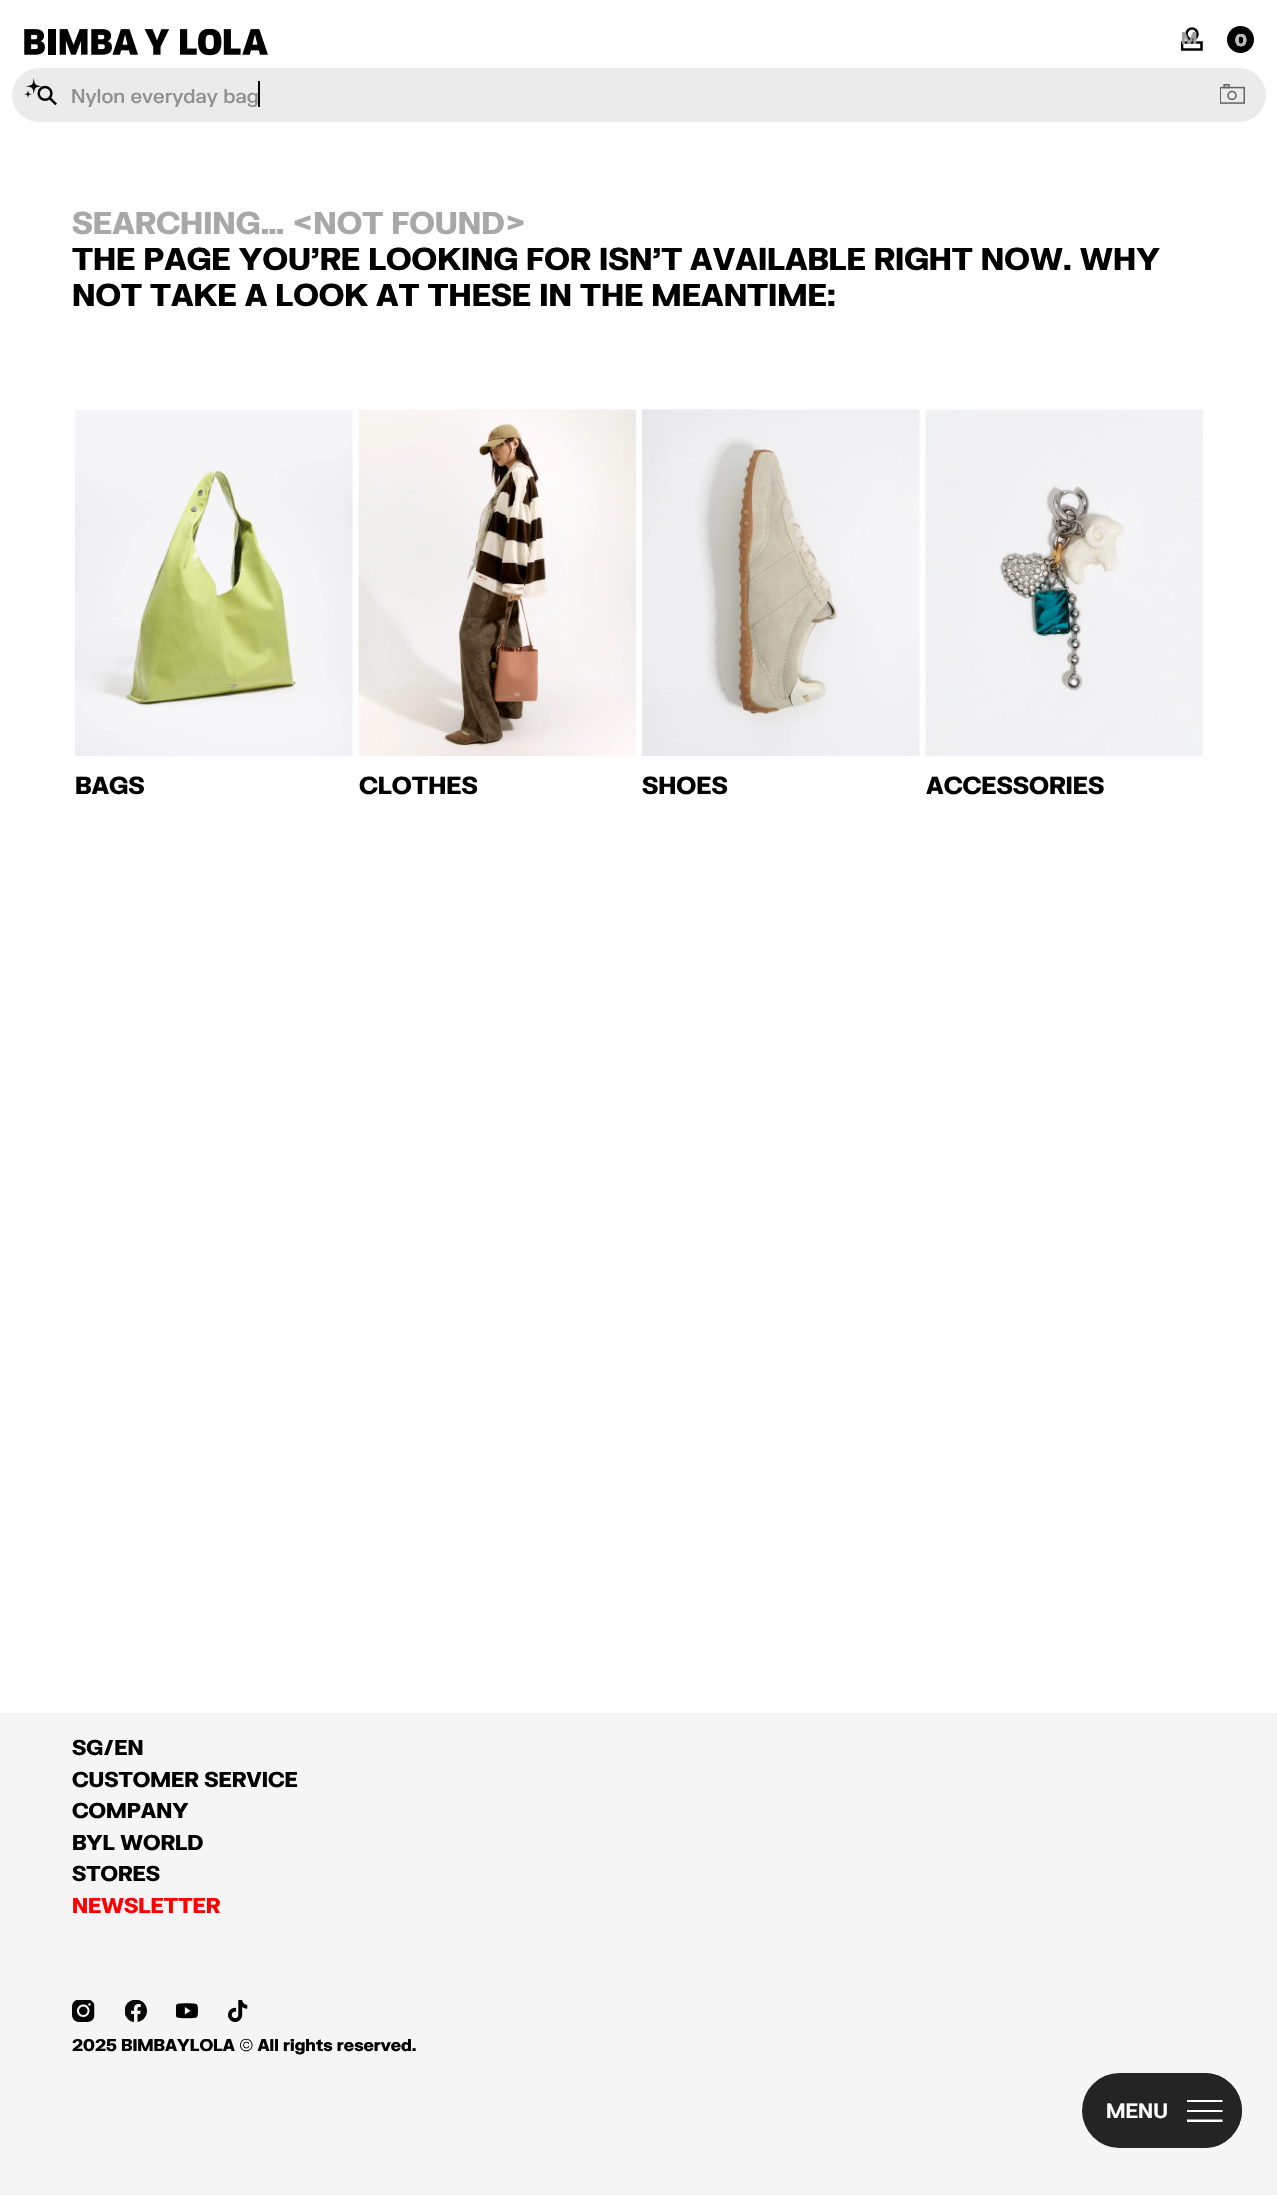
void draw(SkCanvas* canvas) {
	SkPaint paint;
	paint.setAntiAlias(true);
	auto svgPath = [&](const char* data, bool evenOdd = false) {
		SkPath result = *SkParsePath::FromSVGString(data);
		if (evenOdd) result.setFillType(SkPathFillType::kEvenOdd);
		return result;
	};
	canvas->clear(0xffffffff);
	paint.setColor(0xffebebeb);
	canvas->drawRoundRect(SkRect::MakeXYWH(12, 68, 1254, 54), 27, 27, paint);
	canvas->drawImageRect(SkImages::DeferredFromEncodedData(SkData::MakeFromFileName("img1.png")), SkRect::MakeXYWH(24, 78, 33, 27), SkSamplingOptions());
	SkFont f1(fontMgr->matchFamilyStyle("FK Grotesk", SkFontStyle(500, SkFontStyle::kNormal_Width, SkFontStyle::kUpright_Slant)), 19.5);
	f1.setSubpixel(true);
	paint.setColor(0xff909090);
	canvas->drawString("Nylon everyday bag", 71, 103, f1, paint);
	paint.setColor(0xff000000);
	canvas->drawRect(SkRect::MakeXYWH(258, 81, 2, 26), paint);
	canvas->drawImageRect(SkImages::DeferredFromEncodedData(SkData::MakeFromFileName("img2.png")), SkRect::MakeXYWH(1220, 84, 25, 20), SkSamplingOptions());
	canvas->drawImageRect(SkImages::DeferredFromEncodedData(SkData::MakeFromFileName("img3.png")), SkRect::MakeXYWH(24, 29, 244, 27), SkSamplingOptions());
	paint.setStroke(true);
	paint.setStrokeWidth(2.6);
	canvas->drawCircle(1192, 34, 5.5, paint);
	canvas->save();
	canvas->clipRect(SkRect::MakeXYWH(1181, 27, 22, 24));
	canvas->drawPath(svgPath("M1182 42.5H1201.5V49.5H1182Z"), paint);
	canvas->restore();
	SkFont f2(fontMgr->matchFamilyStyle("FK Grotesk", SkFontStyle(900, SkFontStyle::kNormal_Width, SkFontStyle::kUpright_Slant)), 16.5);
	f2.setSubpixel(true);
	paint.setStroke(false);
	paint.setColor(0xff9d9d9d);
	canvas->drawString("M", 1181, 44, f2, paint);
	paint.setColor(0xff000000);
	canvas->drawCircle(1240.5, 39.5, 13.5, paint);
	paint.setColor(0xffffffff);
	canvas->drawString("0", 1235, 46, f2, paint);
	paint.setColor(0xffb9b9b9);
	canvas->drawString("0", 1235, 46, f2, paint);
	paint.setColor(0xfff5f5f5);
	canvas->drawRect(SkRect::MakeXYWH(0, 1713, 1277, 482), paint);
	paint.setColor(0xff242424);
	canvas->drawRoundRect(SkRect::MakeXYWH(1082, 2073, 160, 75), 37.5, 37.5, paint);
	SkFont f3(fontMgr->matchFamilyStyle("FK Grotesk", SkFontStyle::Bold()), 20);
	f3.setSubpixel(true);
	paint.setColor(0xffffffff);
	canvas->drawString("MENU", 1106, 2118, f3, paint);
	paint.setColor(0xff242424);
	canvas->drawCircle(1204.5, 2110.5, 37.5, paint);
	canvas->save();
	canvas->clipRect(SkRect::MakeXYWH(1187, 2100, 36, 23));
	paint.setColor(0xffffffff);
	canvas->drawPath(svgPath("M1186.5 2110H1222.5V2112H1186.5ZM1186.5 2119.5H1222.5V2122H1186.5ZM1186.5 2100H1222.5V2102H1186.5Z", true), paint);
	canvas->restore();
	SkFont f4(fontMgr->matchFamilyStyle("FK Grotesk", SkFontStyle(900, SkFontStyle::kNormal_Width, SkFontStyle::kUpright_Slant)), 30.7);
	f4.setSubpixel(true);
	paint.setColor(0xffa8a8a8);
	canvas->drawString("SEARCHING… <NOT FOUND", 72, 234, f4, paint);
	canvas->drawString(">", 505, 234, f4, paint);
	paint.setColor(0xff000000);
	canvas->drawString("THE PAGE YOU’RE LOOKING FOR ISN’T AVAILABLE RIGHT NOW. WHY", 72, 270, f4, paint);
	canvas->drawString("NOT TAKE A LOOK AT THESE IN THE MEANTIME:", 72, 306, f4, paint);
	canvas->drawImageRect(SkImages::DeferredFromEncodedData(SkData::MakeFromFileName("img4.png")), SkRect::MakeXYWH(75, 409, 278, 347), SkSamplingOptions());
	SkFont f5(fontMgr->matchFamilyStyle("FK Grotesk", SkFontStyle(900, SkFontStyle::kNormal_Width, SkFontStyle::kUpright_Slant)), 24);
	f5.setSubpixel(true);
	canvas->drawString("BAGS", 75, 794, f5, paint);
	canvas->drawImageRect(SkImages::DeferredFromEncodedData(SkData::MakeFromFileName("img5.png")), SkRect::MakeXYWH(358, 409, 278, 347), SkSamplingOptions());
	canvas->drawString("CLOTHES", 359, 794, f5, paint);
	canvas->drawImageRect(SkImages::DeferredFromEncodedData(SkData::MakeFromFileName("img6.png")), SkRect::MakeXYWH(642, 409, 278, 347), SkSamplingOptions());
	canvas->drawString("SHOES", 642, 794, f5, paint);
	canvas->drawImageRect(SkImages::DeferredFromEncodedData(SkData::MakeFromFileName("img7.png")), SkRect::MakeXYWH(925, 409, 278, 347), SkSamplingOptions());
	canvas->drawString("ACCESSORIES", 926, 794, f5, paint);
	SkFont f6(fontMgr->matchFamilyStyle("FK Grotesk", SkFontStyle(900, SkFontStyle::kNormal_Width, SkFontStyle::kUpright_Slant)), 21);
	f6.setSubpixel(true);
	canvas->drawString("SG/EN", 72, 1755, f6, paint);
	canvas->drawString("CUSTOMER SERVICE", 72, 1787, f6, paint);
	canvas->drawString("COMPANY", 72, 1818, f6, paint);
	canvas->drawString("BYL WORLD", 72, 1850, f6, paint);
	canvas->drawString("STORES", 72, 1881, f6, paint);
	paint.setColor(0xffff0000);
	canvas->drawString("NEWSLETTER", 72, 1913, f6, paint);
	canvas->drawImageRect(SkImages::DeferredFromEncodedData(SkData::MakeFromFileName("img8.png")), SkRect::MakeXYWH(72, 2000, 23, 22), SkSamplingOptions());
	canvas->drawImageRect(SkImages::DeferredFromEncodedData(SkData::MakeFromFileName("img9.png")), SkRect::MakeXYWH(125, 2000, 22, 22), SkSamplingOptions());
	canvas->drawImageRect(SkImages::DeferredFromEncodedData(SkData::MakeFromFileName("img10.png")), SkRect::MakeXYWH(176, 2003, 22, 16), SkSamplingOptions());
	canvas->drawImageRect(SkImages::DeferredFromEncodedData(SkData::MakeFromFileName("img11.png")), SkRect::MakeXYWH(228, 2000, 20, 22), SkSamplingOptions());
	paint.setColor(0xff000000);
	canvas->drawString("2025 BIMBAYLOLA © All rights reserved.", 72, 2051, f2, paint);
}
